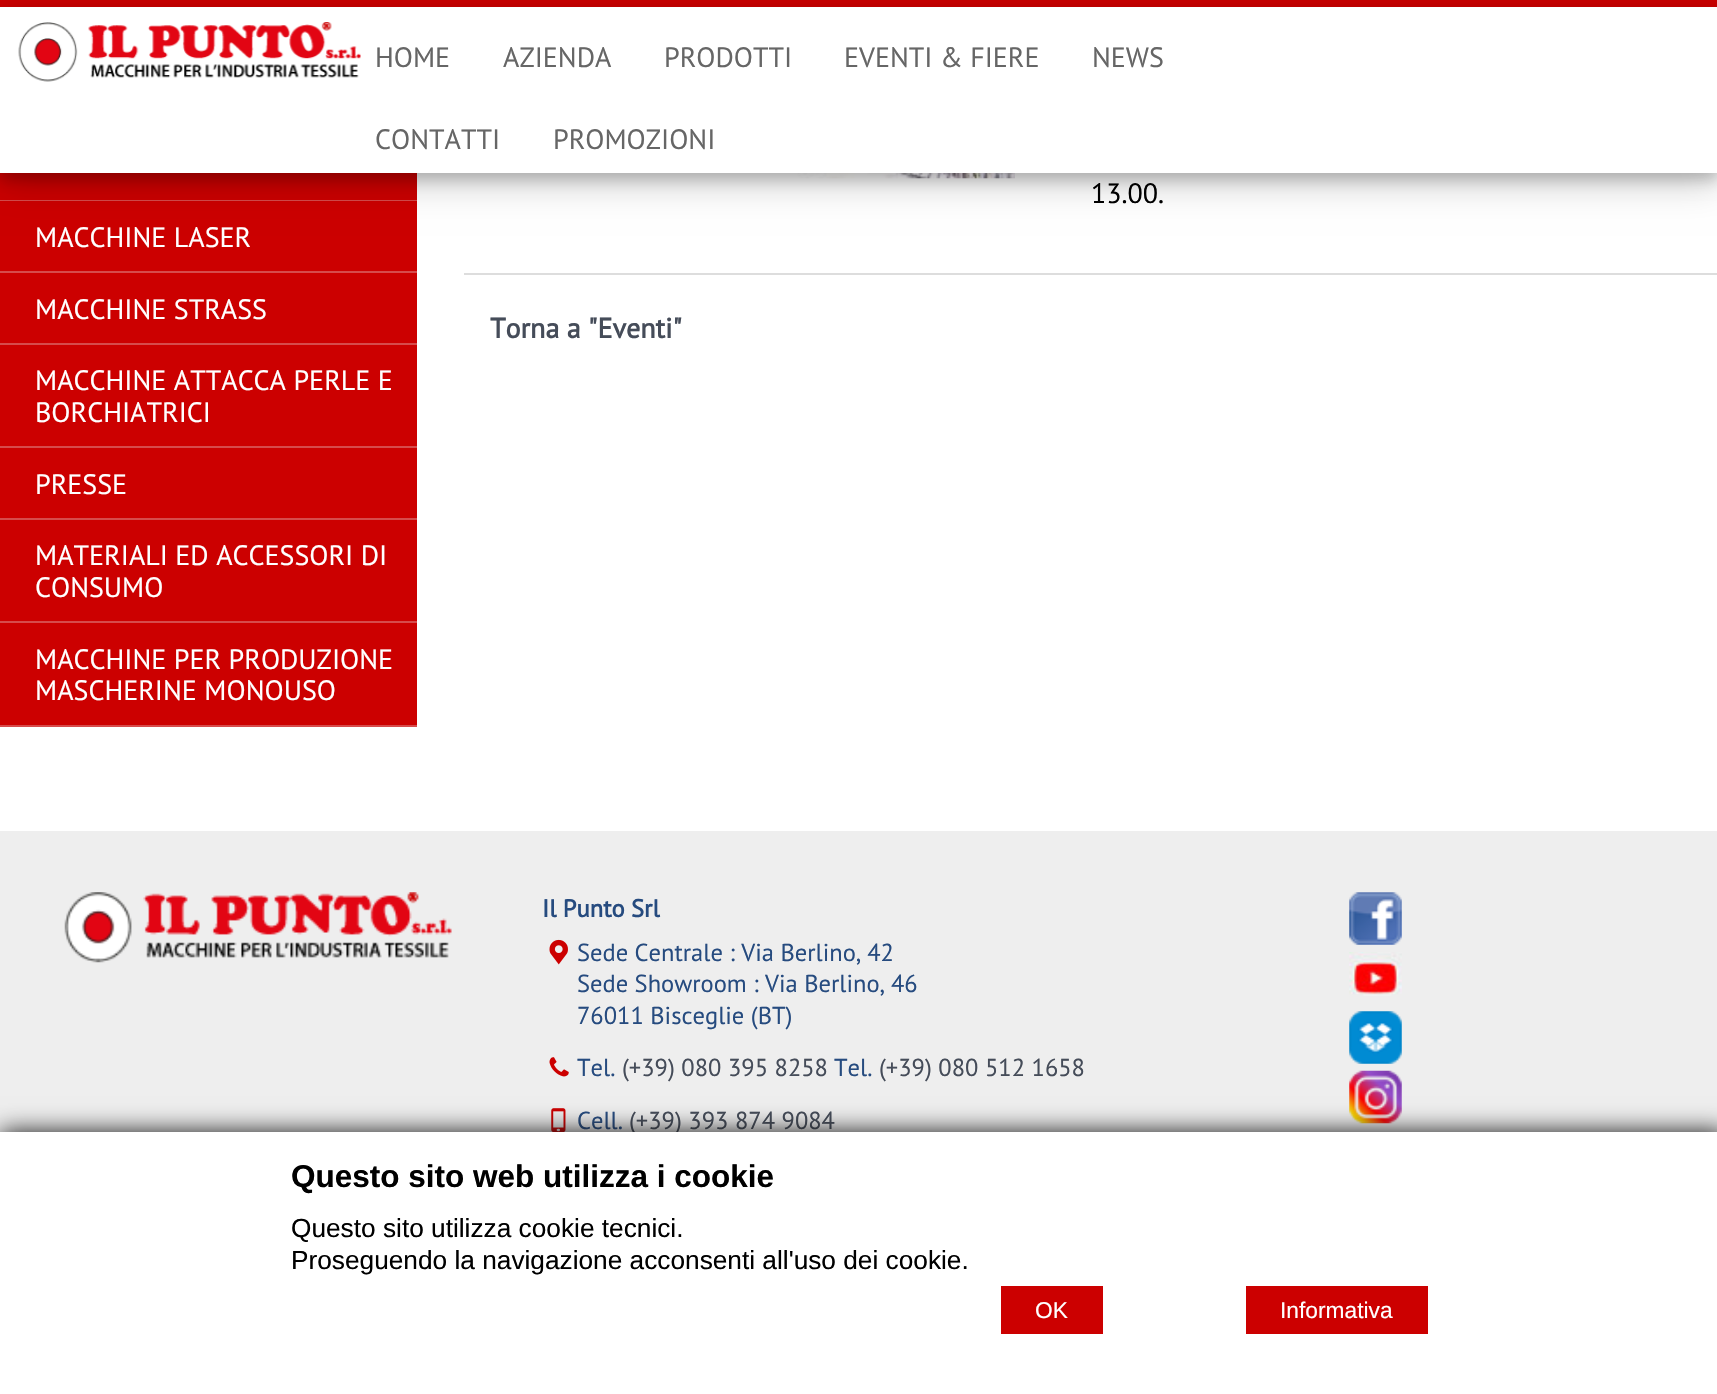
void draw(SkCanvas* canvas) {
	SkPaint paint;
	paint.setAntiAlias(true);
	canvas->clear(0xffffffff);
	paint.setColor(0xffcc0000);
	canvas->drawRect(SkRect::MakeXYWH(0, 0, 1717, 7), paint);
	canvas->drawRect(SkRect::MakeXYWH(0, 173, 417, 27), paint);
	paint.setColor(0xffd64b4b);
	canvas->drawRect(SkRect::MakeXYWH(0, 200, 417, 1), paint);
	paint.setColor(0xffcc0000);
	canvas->drawRect(SkRect::MakeXYWH(0, 201, 417, 70), paint);
	canvas->drawImageRect(SkImages::DeferredFromEncodedData(SkData::MakeFromFileName("img2.png")), SkRect::MakeXYWH(504, 173, 511, 6), SkSamplingOptions());
	paint.setColor(0x30000000);
	paint.setMaskFilter(SkMaskFilter::MakeBlur(kNormal_SkBlurStyle, 17.5));
	canvas->drawRect(SkRect::MakeXYWH(0, 18, 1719, 166), paint);
	paint.setMaskFilter(nullptr);
	paint.setColor(0x33000000);
	paint.setMaskFilter(SkMaskFilter::MakeBlur(kNormal_SkBlurStyle, 7));
	canvas->drawRect(SkRect::MakeXYWH(0, 14, 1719, 166), paint);
	paint.setMaskFilter(nullptr);
	paint.setColor(0xffffffff);
	canvas->drawRect(SkRect::MakeXYWH(0, 7, 1717, 166), paint);
	canvas->drawImageRect(SkImages::DeferredFromEncodedData(SkData::MakeFromFileName("img1.png")), SkRect::MakeXYWH(18, 22, 343, 60), SkSamplingOptions());
	SkFont f1(fontMgr->matchFamilyStyle("PT Sans", SkFontStyle::Normal()), 28);
	f1.setSubpixel(true);
	paint.setColor(0xff666666);
	canvas->drawString("HOME", 375, 67, f1, paint);
	canvas->drawString("AZIENDA", 503, 67, f1, paint);
	canvas->drawString("PRODOTTI", 664, 67, f1, paint);
	canvas->drawString("EVENTI & FIERE", 844, 67, f1, paint);
	canvas->drawString("NEWS", 1092, 67, f1, paint);
	canvas->drawString("CONTATTI", 375, 149, f1, paint);
	canvas->drawString("PROMOZIONI", 553, 149, f1, paint);
	paint.setColor(0xffd64b4b);
	canvas->drawRect(SkRect::MakeXYWH(0, 271, 417, 2), paint);
	paint.setColor(0xffffffff);
	canvas->drawString("MACCHINE LASER", 35, 247, f1, paint);
	paint.setColor(0xffcc0000);
	canvas->drawRect(SkRect::MakeXYWH(0, 273, 417, 70), paint);
	paint.setColor(0xffd64b4b);
	canvas->drawRect(SkRect::MakeXYWH(0, 343, 417, 2), paint);
	paint.setColor(0xffffffff);
	canvas->drawString("MACCHINE STRASS", 35, 319, f1, paint);
	paint.setColor(0xffcc0000);
	canvas->drawRect(SkRect::MakeXYWH(0, 345, 417, 101), paint);
	paint.setColor(0xffd64b4b);
	canvas->drawRect(SkRect::MakeXYWH(0, 446, 417, 2), paint);
	paint.setColor(0xffffffff);
	canvas->drawString("MACCHINE ATTACCA PERLE E", 35, 390, f1, paint);
	canvas->drawString("BORCHIATRICI", 35, 422, f1, paint);
	paint.setColor(0xffcc0000);
	canvas->drawRect(SkRect::MakeXYWH(0, 448, 417, 70), paint);
	paint.setColor(0xffd64b4b);
	canvas->drawRect(SkRect::MakeXYWH(0, 518, 417, 2), paint);
	paint.setColor(0xffffffff);
	canvas->drawString("PRESSE", 35, 494, f1, paint);
	paint.setColor(0xffcc0000);
	canvas->drawRect(SkRect::MakeXYWH(0, 520, 417, 101), paint);
	paint.setColor(0xffd64b4b);
	canvas->drawRect(SkRect::MakeXYWH(0, 621, 417, 2), paint);
	paint.setColor(0xffffffff);
	canvas->drawString("MATERIALI ED ACCESSORI DI", 35, 565, f1, paint);
	canvas->drawString("CONSUMO", 35, 597, f1, paint);
	paint.setColor(0xffcc0000);
	canvas->drawRect(SkRect::MakeXYWH(0, 623, 417, 102), paint);
	paint.setColor(0xffd64b4b);
	canvas->drawRect(SkRect::MakeXYWH(0, 725, 417, 2), paint);
	paint.setColor(0xffffffff);
	canvas->drawString("MACCHINE PER PRODUZIONE", 35, 669, f1, paint);
	canvas->drawString("MASCHERINE MONOUSO", 35, 700, f1, paint);
	paint.setColor(0xff000000);
	canvas->drawString("13.00.", 1091, 203, f1, paint);
	paint.setColor(0xffdddddd);
	canvas->drawRect(SkRect::MakeXYWH(464, 273, 1253, 2), paint);
	SkFont f2(fontMgr->matchFamilyStyle("PT Sans", SkFontStyle::Bold()), 28);
	f2.setSubpixel(true);
	paint.setColor(0xff454c59);
	canvas->drawString("Torna a \"Eventi\"", 490, 338, f2, paint);
	paint.setColor(0xffeeeeee);
	canvas->drawRect(SkRect::MakeXYWH(0, 831, 1717, 301), paint);
	canvas->drawImageRect(SkImages::DeferredFromEncodedData(SkData::MakeFromFileName("img3.png")), SkRect::MakeXYWH(64, 892, 388, 71), SkSamplingOptions());
	SkFont f3(fontMgr->matchFamilyStyle("PT Sans", SkFontStyle::Bold()), 24.5);
	f3.setSubpixel(true);
	paint.setColor(0xff264b7f);
	canvas->drawString("Il Punto Srl", 542, 917, f3, paint);
	canvas->drawImageRect(SkImages::DeferredFromEncodedData(SkData::MakeFromFileName("img4.png")), SkRect::MakeXYWH(549, 939, 19, 26), SkSamplingOptions());
	SkFont f4(fontMgr->matchFamilyStyle("PT Sans", SkFontStyle::Normal()), 24.5);
	f4.setSubpixel(true);
	canvas->drawString("Sede Centrale : Via Berlino, 42", 577, 961, f4, paint);
	canvas->drawString("Sede Showroom : Via Berlino, 46", 577, 992, f4, paint);
	canvas->drawString("76011 Bisceglie (BT)", 577, 1024, f4, paint);
	canvas->drawImageRect(SkImages::DeferredFromEncodedData(SkData::MakeFromFileName("img5.png")), SkRect::MakeXYWH(549, 1057, 20, 20), SkSamplingOptions());
	canvas->drawString("Tel.", 577, 1076, f4, paint);
	paint.setColor(0xff454c59);
	canvas->drawString("(+39) 080 395 8258", 622, 1076, f4, paint);
	paint.setColor(0xff264b7f);
	canvas->drawString("Tel.", 834, 1076, f4, paint);
	paint.setColor(0xff454c59);
	canvas->drawString("(+39) 080 512 1658", 879, 1076, f4, paint);
	canvas->drawImageRect(SkImages::DeferredFromEncodedData(SkData::MakeFromFileName("img6.png")), SkRect::MakeXYWH(551, 1108, 15, 24), SkSamplingOptions());
	paint.setColor(0xff264b7f);
	canvas->drawString("Cell.", 577, 1129, f4, paint);
	paint.setColor(0xff454c59);
	canvas->drawString("(+39) 393 874 9084", 629, 1129, f4, paint);
	canvas->drawImageRect(SkImages::DeferredFromEncodedData(SkData::MakeFromFileName("img7.png")), SkRect::MakeXYWH(1349, 892, 53, 53), SkSamplingOptions());
	canvas->drawImageRect(SkImages::DeferredFromEncodedData(SkData::MakeFromFileName("img8.png")), SkRect::MakeXYWH(1349, 952, 53, 44), SkSamplingOptions());
	canvas->drawImageRect(SkImages::DeferredFromEncodedData(SkData::MakeFromFileName("img9.png")), SkRect::MakeXYWH(1349, 1011, 53, 53), SkSamplingOptions());
	canvas->drawImageRect(SkImages::DeferredFromEncodedData(SkData::MakeFromFileName("img10.png")), SkRect::MakeXYWH(1349, 1070, 53, 54), SkSamplingOptions());
	paint.setColor(0xff121212);
	paint.setMaskFilter(SkMaskFilter::MakeBlur(kNormal_SkBlurStyle, 12));
	canvas->drawRect(SkRect::MakeXYWH(0, 1132, 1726, 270), paint);
	paint.setMaskFilter(nullptr);
	paint.setColor(0xffffffff);
	canvas->drawRect(SkRect::MakeXYWH(0, 1132, 1717, 262), paint);
	SkFont f5(fontMgr->matchFamilyStyle("Liberation Sans", SkFontStyle::Bold()), 31.5);
	f5.setSubpixel(true);
	paint.setColor(0xff000000);
	canvas->drawString("Questo sito web utilizza i cookie", 291, 1187, f5, paint);
	SkFont f6(fontMgr->matchFamilyStyle("Liberation Sans", SkFontStyle::Normal()), 26.25);
	f6.setSubpixel(true);
	canvas->drawString("Questo sito utilizza cookie tecnici.", 291, 1237, f6, paint);
	canvas->drawString("Proseguendo la navigazione acconsenti all'uso dei cookie.", 291, 1269, f6, paint);
	paint.setColor(0xffcc0000);
	canvas->drawRect(SkRect::MakeXYWH(1001, 1286, 102, 48), paint);
	SkFont f7(fontMgr->matchFamilyStyle("Liberation Sans", SkFontStyle::Normal()), 22.75);
	f7.setSubpixel(true);
	paint.setColor(0xffffffff);
	canvas->drawString("OK", 1035, 1318, f7, paint);
	paint.setColor(0xffcc0000);
	canvas->drawRect(SkRect::MakeXYWH(1246, 1286, 182, 48), paint);
	paint.setColor(0xffffffff);
	canvas->drawString("Informativa", 1280, 1318, f7, paint);
}
